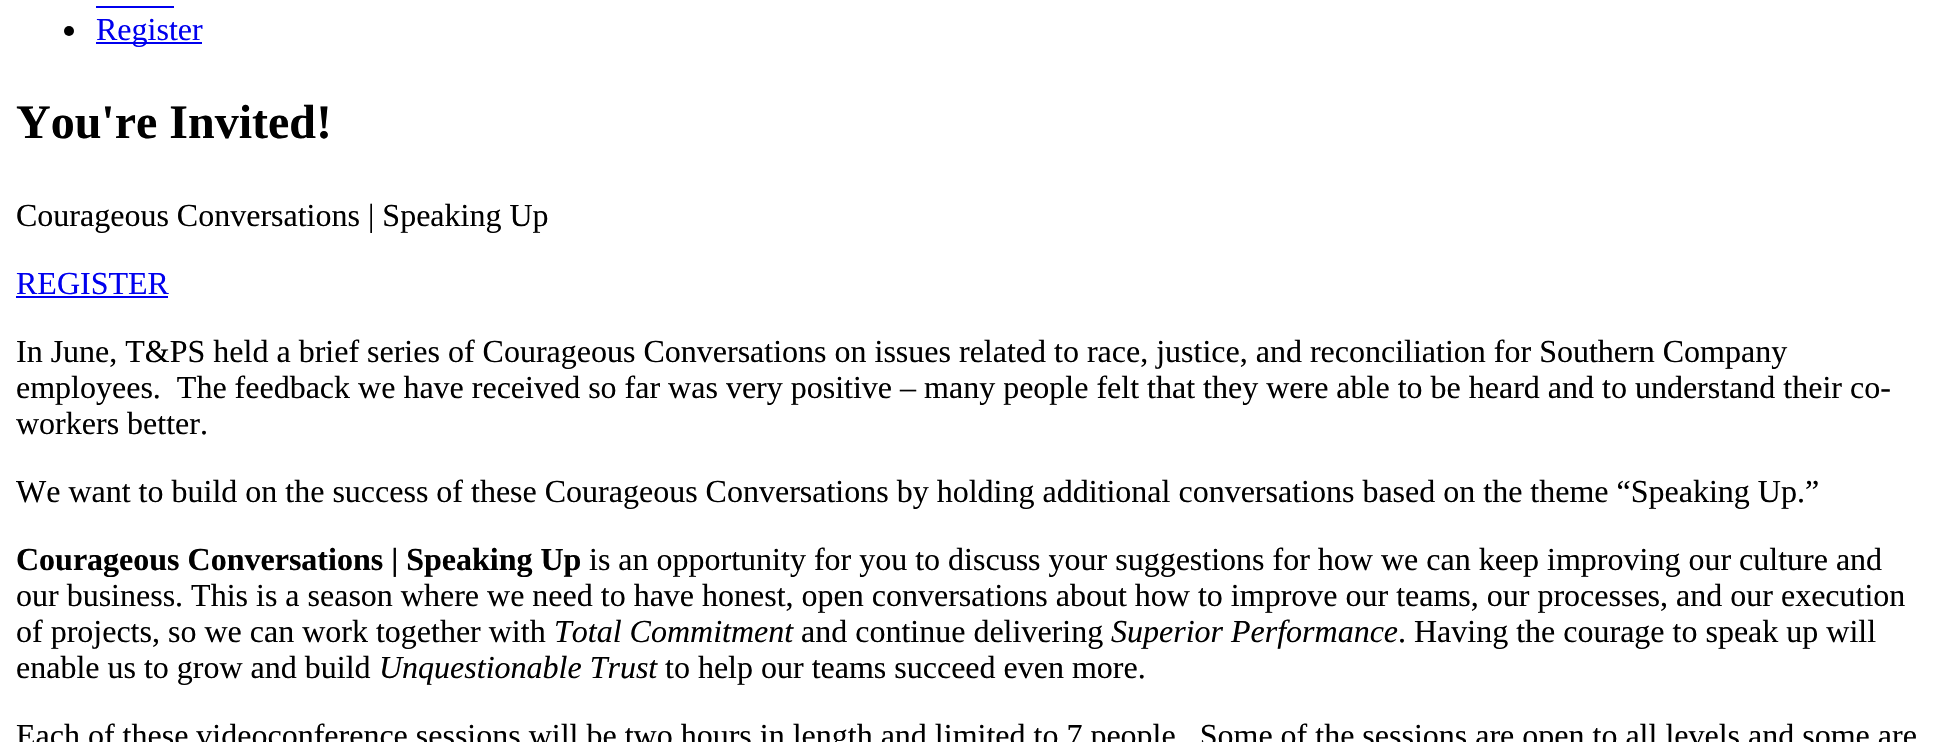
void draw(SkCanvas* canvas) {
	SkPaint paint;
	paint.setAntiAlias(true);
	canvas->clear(0xffffffff);
	paint.setColor(0xff0000ee);
	canvas->drawRect(SkRect::MakeXYWH(96, 6, 78, 2), paint);
	paint.setColor(0xff000000);
	canvas->drawCircle(69, 31, 5, paint);
	paint.setColor(0xff0000ee);
	canvas->drawRect(SkRect::MakeXYWH(96, 42, 106, 2), paint);
	SkFont f1(fontMgr->matchFamilyStyle("Liberation Serif", SkFontStyle::Normal()), 32);
	f1.setSubpixel(true);
	canvas->drawString("Register", 96, 40, f1, paint);
	SkFont f2(fontMgr->matchFamilyStyle("Liberation Serif", SkFontStyle::Bold()), 48);
	f2.setSubpixel(true);
	paint.setColor(0xff000000);
	canvas->drawString("You're Invited!", 16, 138, f2, paint);
	canvas->drawString("Courageous Conversations | Speaking Up", 16, 226, f1, paint);
	paint.setColor(0xff0000ee);
	canvas->drawString("REGISTER", 16, 294, f1, paint);
	canvas->drawRect(SkRect::MakeXYWH(16, 296, 152, 2), paint);
	paint.setColor(0xff000000);
	canvas->drawString("In June, T&PS held a brief series of Courageous Conversations on issues related to race, justice, and reconciliation for Southern Company", 16, 362, f1, paint);
	canvas->drawString("employees.  The feedback we have received so far was very positive – many people felt that they were able to be heard and to understand their co-", 16, 398, f1, paint);
	canvas->drawString("workers better.", 16, 434, f1, paint);
	canvas->drawString("We want to build on the success of these Courageous Conversations by holding additional conversations based on the theme “Speaking Up.”", 16, 502, f1, paint);
	SkFont f3(fontMgr->matchFamilyStyle("Liberation Serif", SkFontStyle::Bold()), 32);
	f3.setSubpixel(true);
	canvas->drawString("Courageous Conversations | Speaking Up", 16, 570, f3, paint);
	canvas->drawString("is an opportunity for you to discuss your suggestions for how we can keep improving our culture and", 589, 570, f1, paint);
	canvas->drawString("our business. This is a season where we need to have honest, open conversations about how to improve our teams, our processes, and our execution", 16, 606, f1, paint);
	canvas->drawString("of projects, so we can work together with", 16, 642, f1, paint);
	SkFont f4(fontMgr->matchFamilyStyle("Liberation Serif", SkFontStyle::Italic()), 32);
	f4.setSubpixel(true);
	canvas->drawString("Total Commitment", 554, 642, f4, paint);
	canvas->drawString("and continue delivering", 801, 642, f1, paint);
	canvas->drawString("Superior Performance", 1111, 642, f4, paint);
	canvas->drawString(". Having the courage to speak up will", 1398, 642, f1, paint);
	canvas->drawString("enable us to grow and build", 16, 678, f1, paint);
	canvas->drawString("Unquestionable Trust", 379, 678, f4, paint);
	canvas->drawString("to help our teams succeed even more.", 665, 678, f1, paint);
	canvas->drawString("Each of these videoconference sessions will be two hours in length and limited to 7 people.  Some of the sessions are open to all levels and some are", 16, 746, f1, paint);
}
